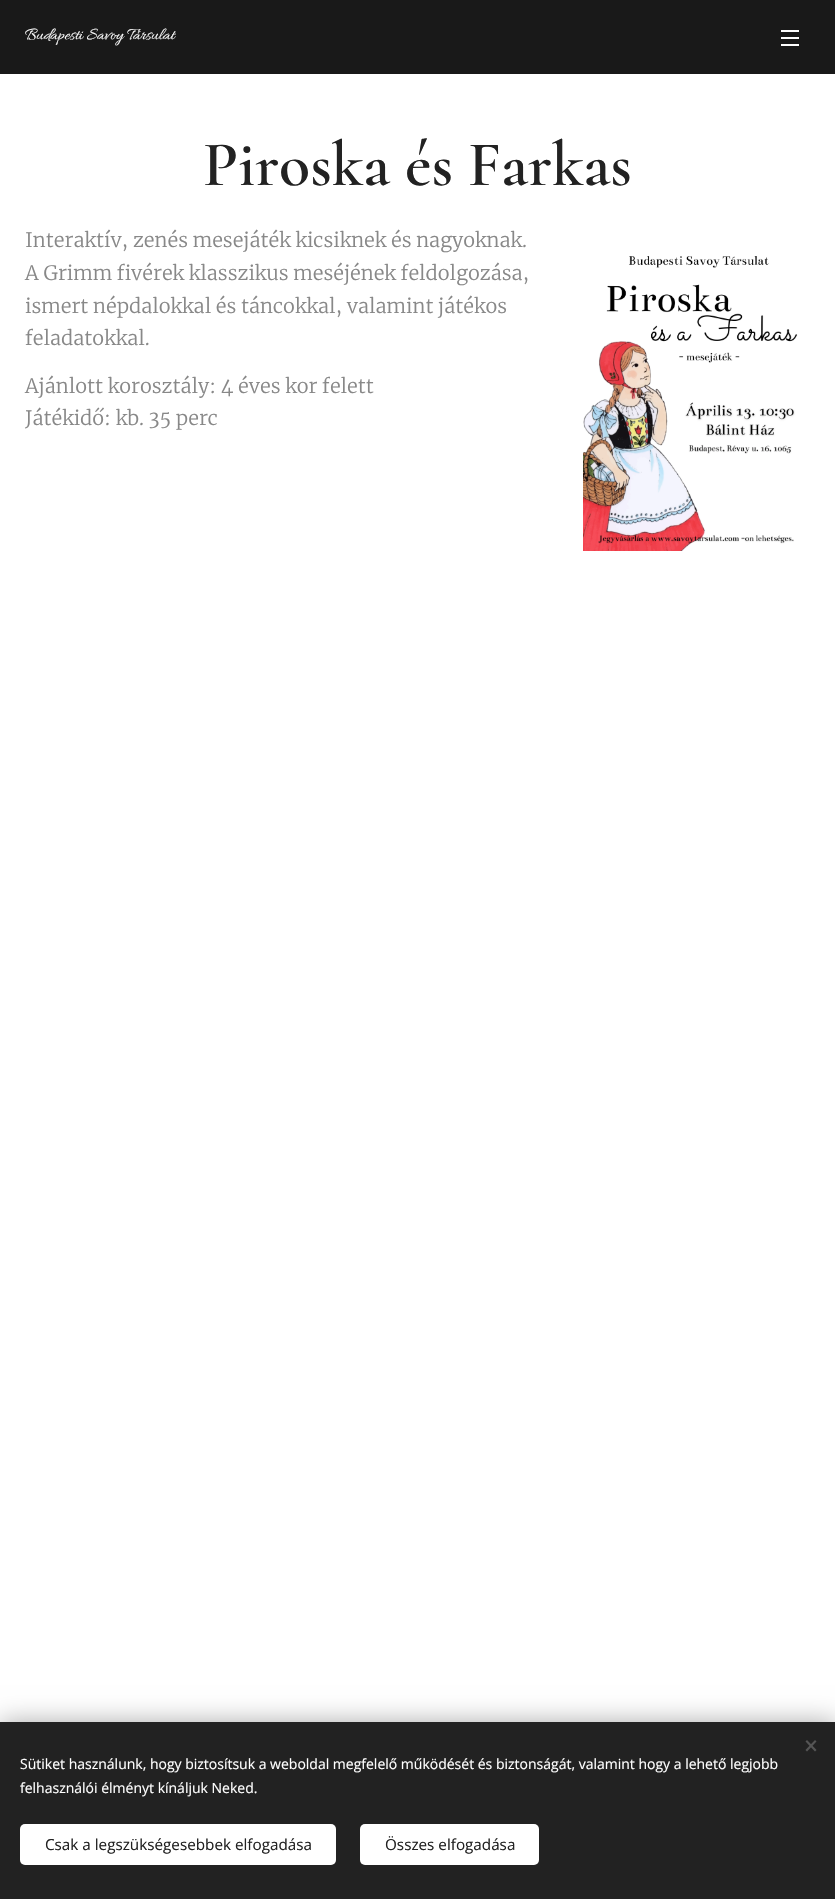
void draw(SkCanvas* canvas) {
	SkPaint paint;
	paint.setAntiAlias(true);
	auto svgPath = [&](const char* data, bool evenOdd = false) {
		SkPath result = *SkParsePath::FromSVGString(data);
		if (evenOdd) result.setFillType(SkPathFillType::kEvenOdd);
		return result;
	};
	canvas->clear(0xffffffff);
	paint.setColor(0xff191919);
	canvas->drawRect(SkRect::MakeXYWH(0, 0, 835, 74), paint);
	SkFont f1(fontMgr->matchFamilyStyle("Allura", SkFontStyle::Normal()), 17.25);
	f1.setSubpixel(true);
	paint.setColor(0xffffffff);
	canvas->drawString("Budapesti Savoy Társulat", 25, 39, f1, paint);
	canvas->drawRect(SkRect::MakeXYWH(781, 37, 18, 2), paint);
	canvas->drawRect(SkRect::MakeXYWH(781, 30, 18, 2), paint);
	canvas->drawRect(SkRect::MakeXYWH(781, 44, 18, 2), paint);
	SkFont f2(fontMgr->matchFamilyStyle("Cormorant", SkFontStyle(600, SkFontStyle::kNormal_Width, SkFontStyle::kUpright_Slant)), 64);
	f2.setSubpixel(true);
	paint.setColor(0xff222222);
	canvas->drawString("Piroska és Farkas", 203, 185, f2, paint);
	SkFont f3(fontMgr->matchFamilyStyle("Merriweather", SkFontStyle(300, SkFontStyle::kNormal_Width, SkFontStyle::kUpright_Slant)), 19.8);
	f3.setSubpixel(true);
	paint.setColor(0xff888888);
	canvas->drawString("Interaktív, zenés mesejáték kicsiknek és nagyoknak.", 25, 247, f3, paint);
	canvas->drawString("A Grimm fivérek klasszikus meséjének feldolgozása,", 25, 280, f3, paint);
	canvas->drawString("ismert népdalokkal és táncokkal, valamint játékos", 25, 313, f3, paint);
	canvas->drawString("feladatokkal.", 25, 345, f3, paint);
	canvas->drawString("Ajánlott korosztály: 4 éves kor felett", 25, 393, f3, paint);
	canvas->drawString("Játékidő: kb. 35 perc", 25, 425, f3, paint);
	canvas->drawImageRect(SkImages::DeferredFromEncodedData(SkData::MakeFromFileName("img1.png")), SkRect::MakeXYWH(583, 256, 215, 295), SkSamplingOptions());
	paint.setColor(0x54000000);
	paint.setMaskFilter(SkMaskFilter::MakeBlur(kNormal_SkBlurStyle, 12.5));
	canvas->drawRect(SkRect::MakeXYWH(0, 1722, 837, 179), paint);
	paint.setMaskFilter(nullptr);
	paint.setColor(0xff222222);
	canvas->drawRect(SkRect::MakeXYWH(0, 1722, 835, 177), paint);
	paint.setColor(0xff555555);
	canvas->drawPath(svgPath("M805.5 1750L815 1740L816.5 1741.5L807 1751.5Z"), paint);
	canvas->drawPath(svgPath("M807 1740L816.5 1750L815 1751.5L805.5 1741.5Z"), paint);
	SkFont f4(fontMgr->matchFamilyStyle("Open Sans", SkFontStyle::Normal()), 14);
	f4.setSubpixel(true);
	paint.setColor(0xffffffff);
	canvas->drawString("Sütiket használunk, hogy biztosítsuk a weboldal megfelelő működését és biztonságát, valamint hogy a lehető legjobb", 20, 1769, f4, paint);
	canvas->drawString("felhasználói élményt kínáljuk Neked.", 20, 1793, f4, paint);
	canvas->drawRoundRect(SkRect::MakeXYWH(20, 1824, 316, 41), 5, 5, paint);
	SkFont f5(fontMgr->matchFamilyStyle("Open Sans", SkFontStyle::Normal()), 15.25);
	f5.setSubpixel(true);
	paint.setColor(0xff222222);
	canvas->drawString("Csak a legszükségesebbek elfogadása", 45, 1850, f5, paint);
	paint.setColor(0xffffffff);
	canvas->drawRoundRect(SkRect::MakeXYWH(360, 1824, 179, 41), 5, 5, paint);
	paint.setColor(0xff222222);
	canvas->drawString("Összes elfogadása", 385, 1850, f5, paint);
}
